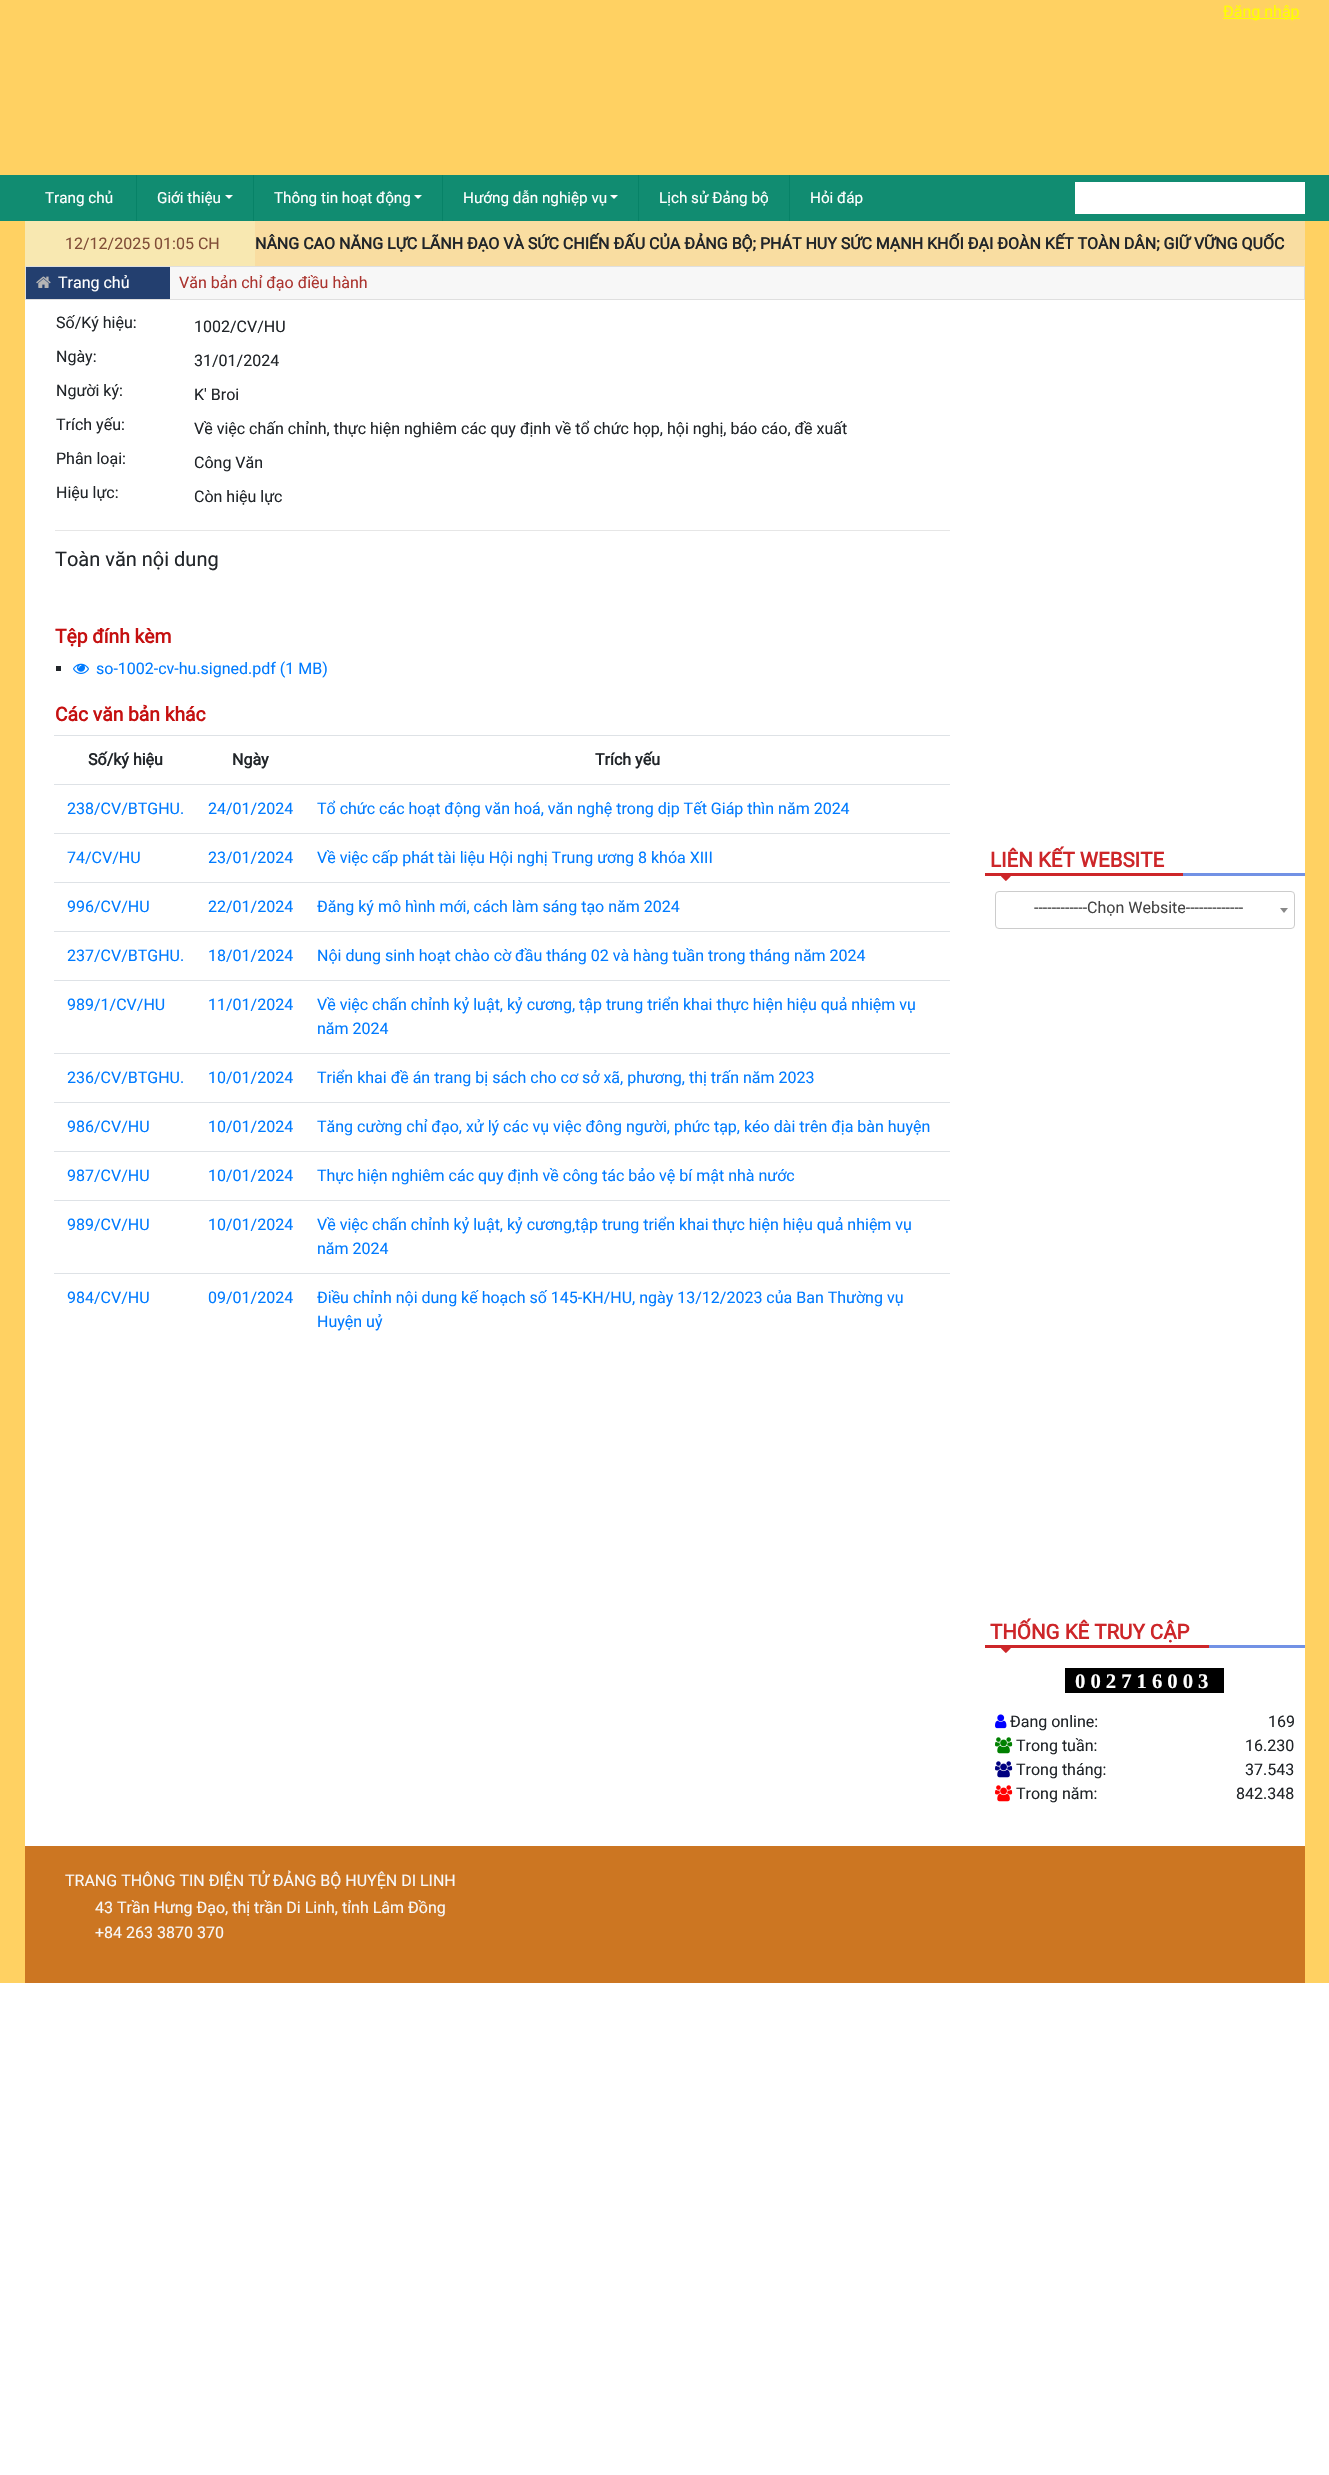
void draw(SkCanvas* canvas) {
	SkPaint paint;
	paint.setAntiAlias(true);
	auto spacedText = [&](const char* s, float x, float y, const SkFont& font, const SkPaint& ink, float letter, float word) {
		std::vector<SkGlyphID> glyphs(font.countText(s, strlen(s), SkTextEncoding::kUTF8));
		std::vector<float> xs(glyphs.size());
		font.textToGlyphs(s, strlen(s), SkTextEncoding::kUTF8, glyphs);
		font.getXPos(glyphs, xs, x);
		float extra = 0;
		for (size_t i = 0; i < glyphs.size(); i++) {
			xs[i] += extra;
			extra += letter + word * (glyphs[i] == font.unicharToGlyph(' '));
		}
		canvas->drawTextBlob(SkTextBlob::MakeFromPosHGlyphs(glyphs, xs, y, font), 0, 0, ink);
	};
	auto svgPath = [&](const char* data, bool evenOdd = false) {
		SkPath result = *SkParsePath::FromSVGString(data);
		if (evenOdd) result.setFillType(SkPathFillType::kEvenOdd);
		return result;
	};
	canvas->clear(0xffffffff);
	paint.setColor(0xffffd162);
	canvas->drawRect(SkRect::MakeXYWH(0, 0, 1329, 1983), paint);
	paint.setColor(0xffffff00);
	canvas->drawRect(SkRect::MakeXYWH(1223, 18, 77, 1), paint);
	SkFont f1(fontMgr->matchFamilyStyle("Roboto", SkFontStyle::Normal()), 16);
	f1.setSubpixel(true);
	canvas->drawString("Đăng nhập", 1223, 17, f1, paint);
	paint.setColor(0xff118c71);
	canvas->drawRect(SkRect::MakeXYWH(0, 175, 1329, 46), paint);
	paint.setColor(0xff078267);
	canvas->drawRect(SkRect::MakeXYWH(136, 175, 1, 46), paint);
	SkFont f2(fontMgr->matchFamilyStyle("Roboto", SkFontStyle::Normal()), 15.25);
	f2.setSubpixel(true);
	paint.setColor(0xffffffff);
	canvas->drawString("Trang chủ", 45, 203, f2, paint);
	paint.setColor(0xff078267);
	canvas->drawRect(SkRect::MakeXYWH(253, 175, 1, 46), paint);
	paint.setColor(0xffffffff);
	canvas->drawString("Giới thiệu", 157, 203, f2, paint);
	canvas->drawPath(svgPath("M225 195H233L229 199Z"), paint);
	paint.setColor(0xff078267);
	canvas->drawRect(SkRect::MakeXYWH(442, 175, 1, 46), paint);
	paint.setColor(0xffffffff);
	canvas->drawString("Thông tin hoạt động", 274, 203, f2, paint);
	canvas->drawPath(svgPath("M414 195H422L418 199Z"), paint);
	paint.setColor(0xff078267);
	canvas->drawRect(SkRect::MakeXYWH(638, 175, 1, 46), paint);
	paint.setColor(0xffffffff);
	canvas->drawString("Hướng dẫn nghiệp vụ", 463, 203, f2, paint);
	canvas->drawPath(svgPath("M610 195H618L614 199Z"), paint);
	paint.setColor(0xff078267);
	canvas->drawRect(SkRect::MakeXYWH(789, 175, 1, 46), paint);
	paint.setColor(0xffffffff);
	canvas->drawString("Lịch sử Đảng bộ", 659, 203, f2, paint);
	canvas->drawString("Hỏi đáp", 810, 203, f2, paint);
	canvas->drawRect(SkRect::MakeXYWH(1075, 182, 230, 32), paint);
	paint.setColor(0xfff8e8b1);
	canvas->drawRect(SkRect::MakeXYWH(25, 221, 230, 45), paint);
	paint.setColor(0xff814e38);
	canvas->drawString("12/12/2025 01:05 CH", 65, 249, f1, paint);
	paint.setColor(0xffffffff);
	canvas->drawRect(SkRect::MakeXYWH(25, 300, 1280, 1546), paint);
	paint.setColor(0xfff9dda1);
	canvas->drawRect(SkRect::MakeXYWH(255, 221, 1050, 45), paint);
	SkFont f3(fontMgr->matchFamilyStyle("Roboto", SkFontStyle::Bold()), 16);
	f3.setSubpixel(true);
	paint.setColor(0xff212529);
	canvas->drawString("NÂNG CAO NĂNG LỰC LÃNH ĐẠO VÀ SỨC CHIẾN ĐẤU CỦA ĐẢNG BỘ; PHÁT HUY SỨC MẠNH KHỐI ĐẠI ĐOÀN KẾT TOÀN DÂN; GIỮ VỮNG QUỐC", 255, 249, f3, paint);
	paint.setColor(0xfff7f7f7);
	canvas->drawRect(SkRect::MakeXYWH(170, 267, 1134, 32), paint);
	paint.setStroke(true);
	paint.setStrokeWidth(1);
	paint.setColor(0xffdfdfdf);
	canvas->drawRect(SkRect::MakeXYWH(25.5, 266.5, 1279, 33), paint);
	paint.setStroke(false);
	paint.setColor(0xff233f6f);
	canvas->drawRect(SkRect::MakeXYWH(26, 267, 144, 32), paint);
	canvas->drawImageRect(SkImages::DeferredFromEncodedData(SkData::MakeFromFileName("img1.png")), SkRect::MakeXYWH(36, 276, 15, 12), SkSamplingOptions());
	paint.setColor(0xffffffff);
	canvas->drawString("Trang chủ", 58, 288, f1, paint);
	paint.setColor(0xffab342f);
	canvas->drawString("Văn bản chỉ đạo điều hành", 179, 288, f1, paint);
	paint.setColor(0xff212529);
	canvas->drawString("Số/Ký hiệu:", 56, 328, f1, paint);
	canvas->drawString("1002/CV/HU", 194, 332, f1, paint);
	canvas->drawString("Ngày:", 56, 362, f1, paint);
	canvas->drawString("31/01/2024", 194, 366, f1, paint);
	canvas->drawString("Người ký:", 56, 396, f1, paint);
	canvas->drawString("K' Broi", 194, 400, f1, paint);
	canvas->drawString("Trích yếu:", 56, 430, f1, paint);
	canvas->drawString("Về việc chấn chỉnh, thực hiện nghiêm các quy định về tổ chức họp, hội nghị, báo cáo, đề xuất", 194, 434, f1, paint);
	canvas->drawString("Phân loại:", 56, 464, f1, paint);
	canvas->drawString("Công Văn", 194, 468, f1, paint);
	canvas->drawString("Hiệu lực:", 56, 498, f1, paint);
	canvas->drawString("Còn hiệu lực", 194, 502, f1, paint);
	paint.setColor(0xffe6e6e6);
	canvas->drawRect(SkRect::MakeXYWH(55, 530, 895, 1), paint);
	SkFont f4(fontMgr->matchFamilyStyle("Roboto", SkFontStyle::Normal()), 20);
	f4.setSubpixel(true);
	paint.setColor(0xff212529);
	canvas->drawString("Toàn văn nội dung", 55, 566, f4, paint);
	SkFont f5(fontMgr->matchFamilyStyle("Roboto", SkFontStyle::Bold()), 19.25);
	f5.setSubpixel(true);
	paint.setColor(0xffc51010);
	canvas->drawString("Tệp đính kèm", 55, 643, f5, paint);
	paint.setColor(0xff212529);
	canvas->drawRect(SkRect::MakeXYWH(56, 666, 5, 5), paint);
	canvas->drawImageRect(SkImages::DeferredFromEncodedData(SkData::MakeFromFileName("img2.png")), SkRect::MakeXYWH(73, 663, 16, 11), SkSamplingOptions());
	paint.setColor(0xff007bff);
	canvas->drawString("so-1002-cv-hu.signed.pdf (1 MB)", 96, 674, f1, paint);
	paint.setColor(0xffc51010);
	canvas->drawString("Các văn bản khác", 55, 721, f5, paint);
	paint.setColor(0xff212529);
	canvas->drawString("Số/ký hiệu", 88, 765, f3, paint);
	canvas->drawString("Ngày", 232, 765, f3, paint);
	paint.setColor(0xffdee2e6);
	canvas->drawRect(SkRect::MakeXYWH(54, 735, 896, 1), paint);
	paint.setColor(0xff212529);
	canvas->drawString("Trích yếu", 595, 765, f3, paint);
	paint.setColor(0xff007bff);
	canvas->drawString("238/CV/BTGHU.", 67, 814, f1, paint);
	canvas->drawString("24/01/2024", 208, 814, f1, paint);
	paint.setColor(0xffdee2e6);
	canvas->drawRect(SkRect::MakeXYWH(54, 784, 896, 1), paint);
	paint.setColor(0xff007bff);
	canvas->drawString("Tổ chức các hoạt động văn hoá, văn nghệ trong dịp Tết Giáp thìn năm 2024", 317, 814, f1, paint);
	canvas->drawString("74/CV/HU", 67, 863, f1, paint);
	canvas->drawString("23/01/2024", 208, 863, f1, paint);
	paint.setColor(0xffdee2e6);
	canvas->drawRect(SkRect::MakeXYWH(54, 833, 896, 1), paint);
	paint.setColor(0xff007bff);
	canvas->drawString("Về việc cấp phát tài liệu Hội nghị Trung ương 8 khóa XIII", 317, 863, f1, paint);
	canvas->drawString("996/CV/HU", 67, 912, f1, paint);
	canvas->drawString("22/01/2024", 208, 912, f1, paint);
	paint.setColor(0xffdee2e6);
	canvas->drawRect(SkRect::MakeXYWH(54, 882, 896, 1), paint);
	paint.setColor(0xff007bff);
	canvas->drawString("Đăng ký mô hình mới, cách làm sáng tạo năm 2024", 317, 912, f1, paint);
	canvas->drawString("237/CV/BTGHU.", 67, 961, f1, paint);
	canvas->drawString("18/01/2024", 208, 961, f1, paint);
	paint.setColor(0xffdee2e6);
	canvas->drawRect(SkRect::MakeXYWH(54, 931, 896, 1), paint);
	paint.setColor(0xff007bff);
	canvas->drawString("Nội dung sinh hoạt chào cờ đầu tháng 02 và hàng tuần trong tháng năm 2024", 317, 961, f1, paint);
	canvas->drawString("989/1/CV/HU", 67, 1010, f1, paint);
	canvas->drawString("11/01/2024", 208, 1010, f1, paint);
	paint.setColor(0xffdee2e6);
	canvas->drawRect(SkRect::MakeXYWH(54, 980, 896, 1), paint);
	paint.setColor(0xff007bff);
	canvas->drawString("Về việc chấn chỉnh kỷ luật, kỷ cương, tập trung triển khai thực hiện hiệu quả nhiệm vụ", 317, 1010, f1, paint);
	canvas->drawString("năm 2024", 317, 1034, f1, paint);
	canvas->drawString("236/CV/BTGHU.", 67, 1083, f1, paint);
	canvas->drawString("10/01/2024", 208, 1083, f1, paint);
	paint.setColor(0xffdee2e6);
	canvas->drawRect(SkRect::MakeXYWH(54, 1053, 896, 1), paint);
	paint.setColor(0xff007bff);
	canvas->drawString("Triển khai đề án trang bị sách cho cơ sở xã, phương, thị trấn năm 2023", 317, 1083, f1, paint);
	canvas->drawString("986/CV/HU", 67, 1132, f1, paint);
	canvas->drawString("10/01/2024", 208, 1132, f1, paint);
	paint.setColor(0xffdee2e6);
	canvas->drawRect(SkRect::MakeXYWH(54, 1102, 896, 1), paint);
	paint.setColor(0xff007bff);
	canvas->drawString("Tăng cường chỉ đạo, xử lý các vụ việc đông người, phức tạp, kéo dài trên địa bàn huyện", 317, 1132, f1, paint);
	canvas->drawString("987/CV/HU", 67, 1181, f1, paint);
	canvas->drawString("10/01/2024", 208, 1181, f1, paint);
	paint.setColor(0xffdee2e6);
	canvas->drawRect(SkRect::MakeXYWH(54, 1151, 896, 1), paint);
	paint.setColor(0xff007bff);
	canvas->drawString("Thực hiện nghiêm các quy định về công tác bảo vệ bí mật nhà nước", 317, 1181, f1, paint);
	canvas->drawString("989/CV/HU", 67, 1230, f1, paint);
	canvas->drawString("10/01/2024", 208, 1230, f1, paint);
	paint.setColor(0xffdee2e6);
	canvas->drawRect(SkRect::MakeXYWH(54, 1200, 896, 1), paint);
	paint.setColor(0xff007bff);
	canvas->drawString("Về việc chấn chỉnh kỷ luật, kỷ cương,tập trung triển khai thực hiện hiệu quả nhiệm vụ", 317, 1230, f1, paint);
	canvas->drawString("năm 2024", 317, 1254, f1, paint);
	canvas->drawString("984/CV/HU", 67, 1303, f1, paint);
	canvas->drawString("09/01/2024", 208, 1303, f1, paint);
	paint.setColor(0xffdee2e6);
	canvas->drawRect(SkRect::MakeXYWH(54, 1273, 896, 1), paint);
	paint.setColor(0xff007bff);
	canvas->drawString("Điều chỉnh nội dung kế hoạch số 145-KH/HU, ngày 13/12/2023 của Ban Thường vụ", 317, 1303, f1, paint);
	canvas->drawString("Huyện uỷ", 317, 1327, f1, paint);
	paint.setColor(0xff7292e5);
	canvas->drawRect(SkRect::MakeXYWH(1183, 873, 122, 3), paint);
	paint.setColor(0xffcd2629);
	canvas->drawRect(SkRect::MakeXYWH(985, 873, 198, 3), paint);
	SkFont f6(fontMgr->matchFamilyStyle("Roboto", SkFontStyle::Bold()), 20.5);
	f6.setSubpixel(true);
	canvas->drawString("LIÊN KẾT WEBSITE", 990, 867, f6, paint);
	canvas->drawImageRect(SkImages::DeferredFromEncodedData(SkData::MakeFromFileName("img3.png")), SkRect::MakeXYWH(1001, 876, 10, 5), SkSamplingOptions());
	paint.setStroke(true);
	paint.setColor(0xffcccccc);
	canvas->drawRoundRect(SkRect::MakeXYWH(995.5, 891.5, 299, 37), 3.5, 3.5, paint);
	paint.setStroke(false);
	paint.setColor(0xff444444);
	canvas->drawString("------------Chọn Website-------------", 1034, 913, f1, paint);
	paint.setColor(0xff888888);
	canvas->drawPath(svgPath("M1280 908H1288L1284 913Z"), paint);
	paint.setColor(0xff7292e5);
	canvas->drawRect(SkRect::MakeXYWH(1209, 1645, 96, 3), paint);
	paint.setColor(0xffcd2629);
	canvas->drawRect(SkRect::MakeXYWH(985, 1645, 224, 3), paint);
	canvas->drawString("THỐNG KÊ TRUY CẬP", 990, 1639, f6, paint);
	canvas->drawImageRect(SkImages::DeferredFromEncodedData(SkData::MakeFromFileName("img3.png")), SkRect::MakeXYWH(1001, 1648, 10, 5), SkSamplingOptions());
	paint.setColor(0xff000000);
	canvas->drawRect(SkRect::MakeXYWH(1065, 1668, 159, 25), paint);
	SkFont f7(fontMgr->matchFamilyStyle("Liberation Serif", SkFontStyle::Bold()), 20.75);
	f7.setSubpixel(true);
	paint.setColor(0xffffffff);
	spacedText("002716003", 1075, 1688, f7, paint, 5, 0);
	canvas->drawImageRect(SkImages::DeferredFromEncodedData(SkData::MakeFromFileName("img4.png")), SkRect::MakeXYWH(995, 1714, 12, 15), SkSamplingOptions());
	paint.setColor(0xff212529);
	canvas->drawString("Đang online:", 1010, 1727, f1, paint);
	canvas->drawString("169", 1268, 1727, f1, paint);
	canvas->drawImageRect(SkImages::DeferredFromEncodedData(SkData::MakeFromFileName("img5.png")), SkRect::MakeXYWH(995, 1737, 18, 17), SkSamplingOptions());
	canvas->drawString("Trong tuần:", 1016, 1751, f1, paint);
	canvas->drawString("16.230", 1245, 1751, f1, paint);
	canvas->drawImageRect(SkImages::DeferredFromEncodedData(SkData::MakeFromFileName("img6.png")), SkRect::MakeXYWH(995, 1761, 18, 17), SkSamplingOptions());
	canvas->drawString("Trong tháng:", 1016, 1775, f1, paint);
	canvas->drawString("37.543", 1245, 1775, f1, paint);
	canvas->drawImageRect(SkImages::DeferredFromEncodedData(SkData::MakeFromFileName("img7.png")), SkRect::MakeXYWH(995, 1785, 18, 17), SkSamplingOptions());
	canvas->drawString("Trong năm:", 1016, 1799, f1, paint);
	canvas->drawString("842.348", 1236, 1799, f1, paint);
	paint.setColor(0xffcc7622);
	canvas->drawRect(SkRect::MakeXYWH(25, 1846, 1280, 137), paint);
	paint.setColor(0xfff8f8f8);
	canvas->drawString("TRANG THÔNG TIN ĐIỆN TỬ ĐẢNG BỘ HUYỆN DI LINH", 65, 1886, f1, paint);
	canvas->drawString("43 Trần Hưng Đạo, thị trần Di Linh, tỉnh Lâm Đồng", 95, 1913, f1, paint);
	canvas->drawString("+84 263 3870 370", 95, 1938, f1, paint);
}
